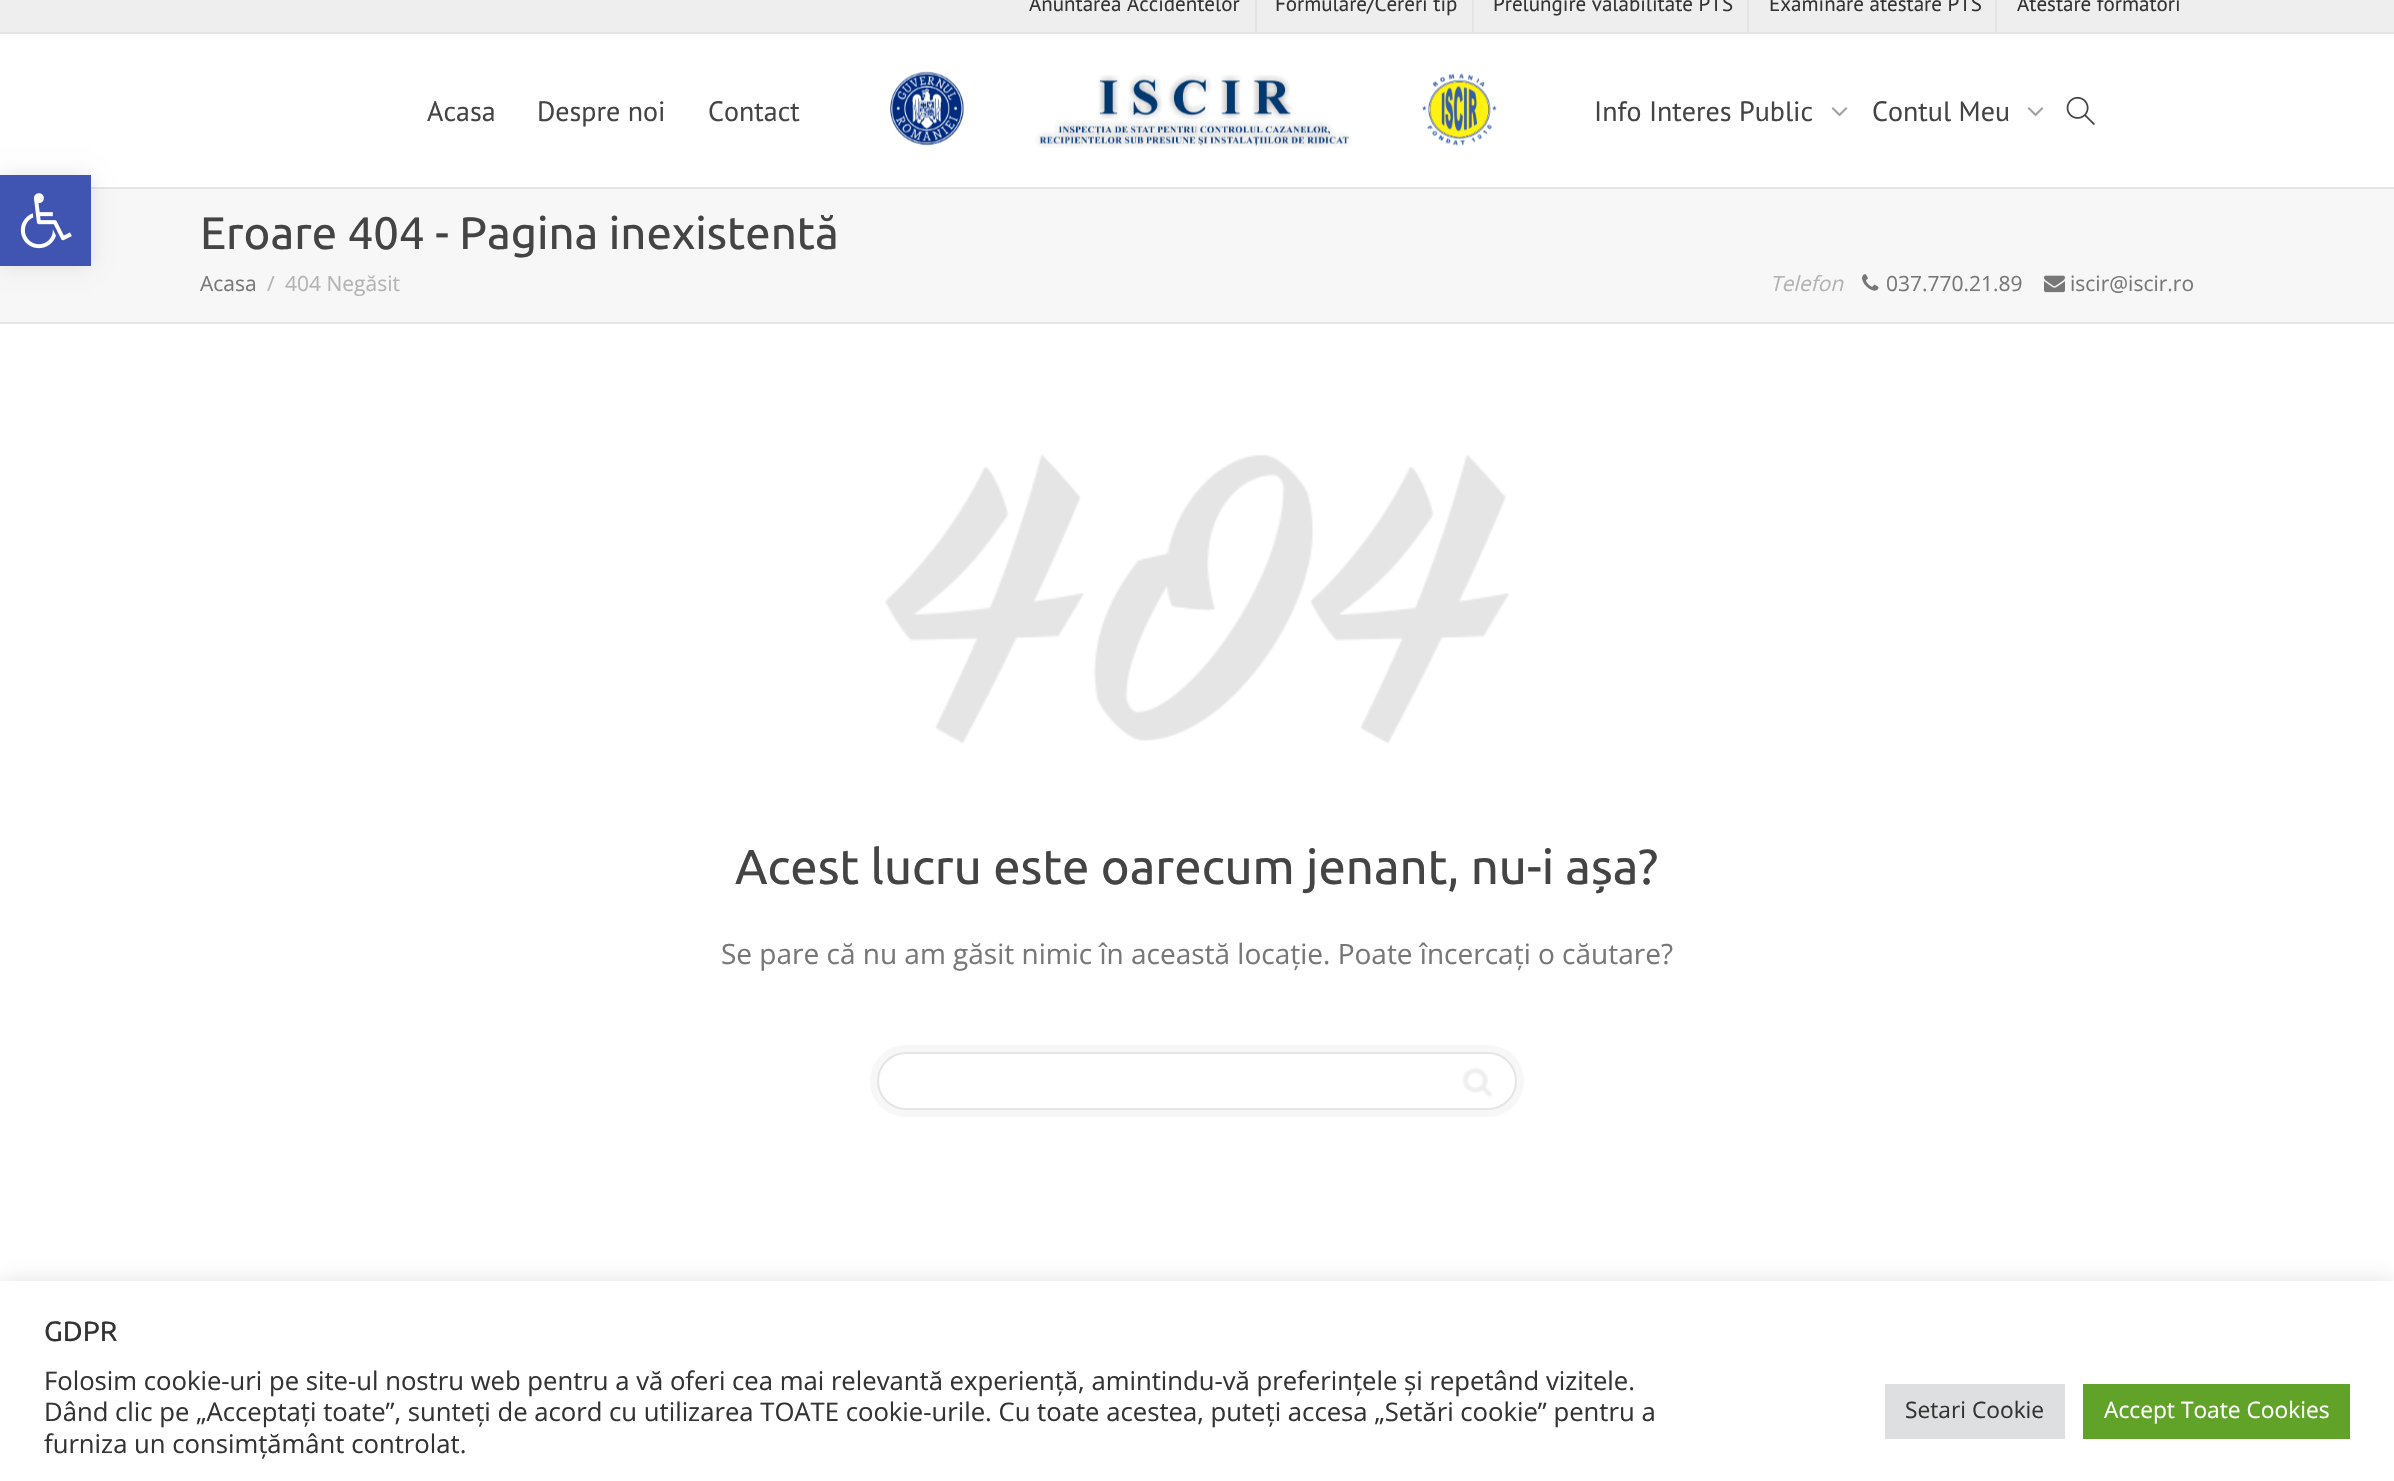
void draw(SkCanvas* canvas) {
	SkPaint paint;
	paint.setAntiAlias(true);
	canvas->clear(0xffffffff);
	paint.setColor(0xffe5e5e5);
	canvas->drawRect(SkRect::MakeXYWH(91, 187, 2303, 2), paint);
	paint.setColor(0xfff7f7f7);
	canvas->drawRect(SkRect::MakeXYWH(0, 189, 2394, 133), paint);
	paint.setColor(0x1a000000);
	paint.setMaskFilter(SkMaskFilter::MakeBlur(kNormal_SkBlurStyle, 9));
	canvas->drawRect(SkRect::MakeXYWH(0, 175, 91, 91), paint);
	paint.setMaskFilter(nullptr);
	paint.setColor(0xff4054b2);
	canvas->drawRect(SkRect::MakeXYWH(0, 175, 91, 91), paint);
	canvas->drawImageRect(SkImages::DeferredFromEncodedData(SkData::MakeFromFileName("img1.png")), SkRect::MakeXYWH(20, 193, 52, 56), SkSamplingOptions());
	paint.setColor(0xffeeeeee);
	canvas->drawRect(SkRect::MakeXYWH(0, 0, 2394, 32), paint);
	paint.setColor(0xffe5e5e5);
	canvas->drawRect(SkRect::MakeXYWH(0, 32, 2394, 2), paint);
	canvas->drawRect(SkRect::MakeXYWH(1255, 0, 2, 32), paint);
	SkFont f1(fontMgr->matchFamilyStyle("PT Sans", SkFontStyle::Normal()), 21);
	f1.setSubpixel(true);
	paint.setColor(0xff333333);
	canvas->drawString("Anuntarea Accidentelor", 1029, 11, f1, paint);
	paint.setColor(0xffe5e5e5);
	canvas->drawRect(SkRect::MakeXYWH(1472, 0, 2, 32), paint);
	paint.setColor(0xff333333);
	canvas->drawString("Formulare/Cereri tip", 1275, 11, f1, paint);
	paint.setColor(0xffe5e5e5);
	canvas->drawRect(SkRect::MakeXYWH(1747, 0, 2, 32), paint);
	paint.setColor(0xff333333);
	canvas->drawString("Prelungire valabilitate PTS", 1493, 11, f1, paint);
	paint.setColor(0xffe5e5e5);
	canvas->drawRect(SkRect::MakeXYWH(1995, 0, 2, 32), paint);
	paint.setColor(0xff333333);
	canvas->drawString("Examinare atestare PTS", 1769, 11, f1, paint);
	canvas->drawString("Atestare formatori", 2017, 11, f1, paint);
	SkFont f2(fontMgr->matchFamilyStyle("PT Sans", SkFontStyle::Normal()), 28);
	f2.setSubpixel(true);
	paint.setColor(0xff444444);
	canvas->drawString("Acasa", 427, 121, f2, paint);
	canvas->drawString("Despre noi", 537, 121, f2, paint);
	canvas->drawString("Contact", 708, 121, f2, paint);
	canvas->drawImageRect(SkImages::DeferredFromEncodedData(SkData::MakeFromFileName("img2.png")), SkRect::MakeXYWH(890, 71, 607, 77), SkSamplingOptions());
	canvas->drawString("Info Interes Public", 1594, 121, f2, paint);
	canvas->drawImageRect(SkImages::DeferredFromEncodedData(SkData::MakeFromFileName("img3.png")), SkRect::MakeXYWH(1831, 107, 17, 10), SkSamplingOptions());
	canvas->drawString("Contul Meu", 1872, 121, f2, paint);
	canvas->drawImageRect(SkImages::DeferredFromEncodedData(SkData::MakeFromFileName("img3.png")), SkRect::MakeXYWH(2027, 107, 17, 10), SkSamplingOptions());
	canvas->drawImageRect(SkImages::DeferredFromEncodedData(SkData::MakeFromFileName("img4.png")), SkRect::MakeXYWH(2066, 96, 29, 29), SkSamplingOptions());
	paint.setColor(0xffe5e5e5);
	canvas->drawRect(SkRect::MakeXYWH(0, 322, 2394, 2), paint);
	SkFont f3(fontMgr->matchFamilyStyle("Ubuntu", SkFontStyle::Normal()), 45.5);
	f3.setSubpixel(true);
	paint.setColor(0xff444444);
	canvas->drawString("Eroare 404 - Pagina inexistentă", 200, 249, f3, paint);
	SkFont f4(fontMgr->matchFamilyStyle("Open Sans", SkFontStyle::Normal()), 21);
	f4.setSubpixel(true);
	paint.setColor(0xff777777);
	canvas->drawString("Acasa", 200, 291, f4, paint);
	paint.setColor(0xffb3b3b3);
	canvas->drawString("/", 267, 291, f4, paint);
	canvas->drawString("404 Negăsit", 285, 291, f4, paint);
	SkFont f5(fontMgr->matchFamilyStyle("Open Sans", SkFontStyle::Italic()), 21);
	f5.setSubpixel(true);
	canvas->drawString("Telefon", 1770, 291, f5, paint);
	canvas->drawImageRect(SkImages::DeferredFromEncodedData(SkData::MakeFromFileName("img5.png")), SkRect::MakeXYWH(1862, 274, 17, 17), SkSamplingOptions());
	paint.setColor(0xff777777);
	canvas->drawString("037.770.21.89", 1886, 291, f4, paint);
	canvas->drawImageRect(SkImages::DeferredFromEncodedData(SkData::MakeFromFileName("img6.png")), SkRect::MakeXYWH(2044, 275, 21, 18), SkSamplingOptions());
	canvas->drawString("iscir@iscir.ro", 2070, 291, f4, paint);
	canvas->drawImageRect(SkImages::DeferredFromEncodedData(SkData::MakeFromFileName("img7.png")), SkRect::MakeXYWH(885, 454, 624, 290), SkSamplingOptions());
	SkFont f6(fontMgr->matchFamilyStyle("Ubuntu", SkFontStyle::Normal()), 49);
	f6.setSubpixel(true);
	paint.setColor(0xff444444);
	canvas->drawString("Acest lucru este oarecum jenant, nu-i așa?", 735, 884, f6, paint);
	SkFont f7(fontMgr->matchFamilyStyle("Open Sans", SkFontStyle::Normal()), 28);
	f7.setSubpixel(true);
	paint.setColor(0xff777777);
	canvas->drawString("Se pare că nu am găsit nimic în această locație. Poate încercați o căutare?", 721, 964, f7, paint);
	paint.setStroke(true);
	paint.setStrokeWidth(7);
	paint.setColor(0xfff7f7f7);
	canvas->drawRoundRect(SkRect::MakeXYWH(873.5, 1048.5, 647, 65), 32.5, 32.5, paint);
	paint.setStrokeWidth(2);
	paint.setColor(0xffe5e5e5);
	canvas->drawRoundRect(SkRect::MakeXYWH(878, 1053, 638, 56), 28, 28, paint);
	canvas->drawImageRect(SkImages::DeferredFromEncodedData(SkData::MakeFromFileName("img8.png")), SkRect::MakeXYWH(1463, 1067, 29, 30), SkSamplingOptions());
	paint.setStroke(false);
	paint.setColor(0x4dacabab);
	paint.setMaskFilter(SkMaskFilter::MakeBlur(kNormal_SkBlurStyle, 9));
	canvas->drawRect(SkRect::MakeXYWH(0, 1279, 2394, 202), paint);
	paint.setMaskFilter(nullptr);
	paint.setColor(0xffffffff);
	canvas->drawRect(SkRect::MakeXYWH(0, 1281, 2394, 200), paint);
	SkFont f8(fontMgr->matchFamilyStyle("Ubuntu", SkFontStyle::Normal()), 28);
	f8.setSubpixel(true);
	paint.setColor(0xff333333);
	canvas->drawString("GDPR", 44, 1341, f8, paint);
	SkFont f9(fontMgr->matchFamilyStyle("Open Sans", SkFontStyle::Normal()), 25.67);
	f9.setSubpixel(true);
	canvas->drawString("Folosim cookie-uri pe site-ul nostru web pentru a vă oferi cea mai relevantă experiență, amintindu-vă preferințele și repetând vizitele.", 44, 1390, f9, paint);
	canvas->drawString("Dând clic pe „Acceptați toate”, sunteți de acord cu utilizarea TOATE cookie-urile. Cu toate acestea, puteți accesa „Setări cookie” pentru a", 44, 1421, f9, paint);
	canvas->drawString("furniza un consimțământ controlat.", 44, 1453, f9, paint);
	paint.setColor(0xffdedfe0);
	canvas->drawRect(SkRect::MakeXYWH(1885, 1384, 180, 55), paint);
	SkFont f10(fontMgr->matchFamilyStyle("Open Sans", SkFontStyle::Normal()), 22.75);
	f10.setSubpixel(true);
	paint.setColor(0xff333333);
	canvas->drawString("Setari Cookie", 1905, 1418, f10, paint);
	paint.setColor(0xff61a229);
	canvas->drawRect(SkRect::MakeXYWH(2083, 1384, 267, 55), paint);
	paint.setColor(0xffffffff);
	canvas->drawString("Accept Toate Cookies", 2104, 1418, f10, paint);
}
